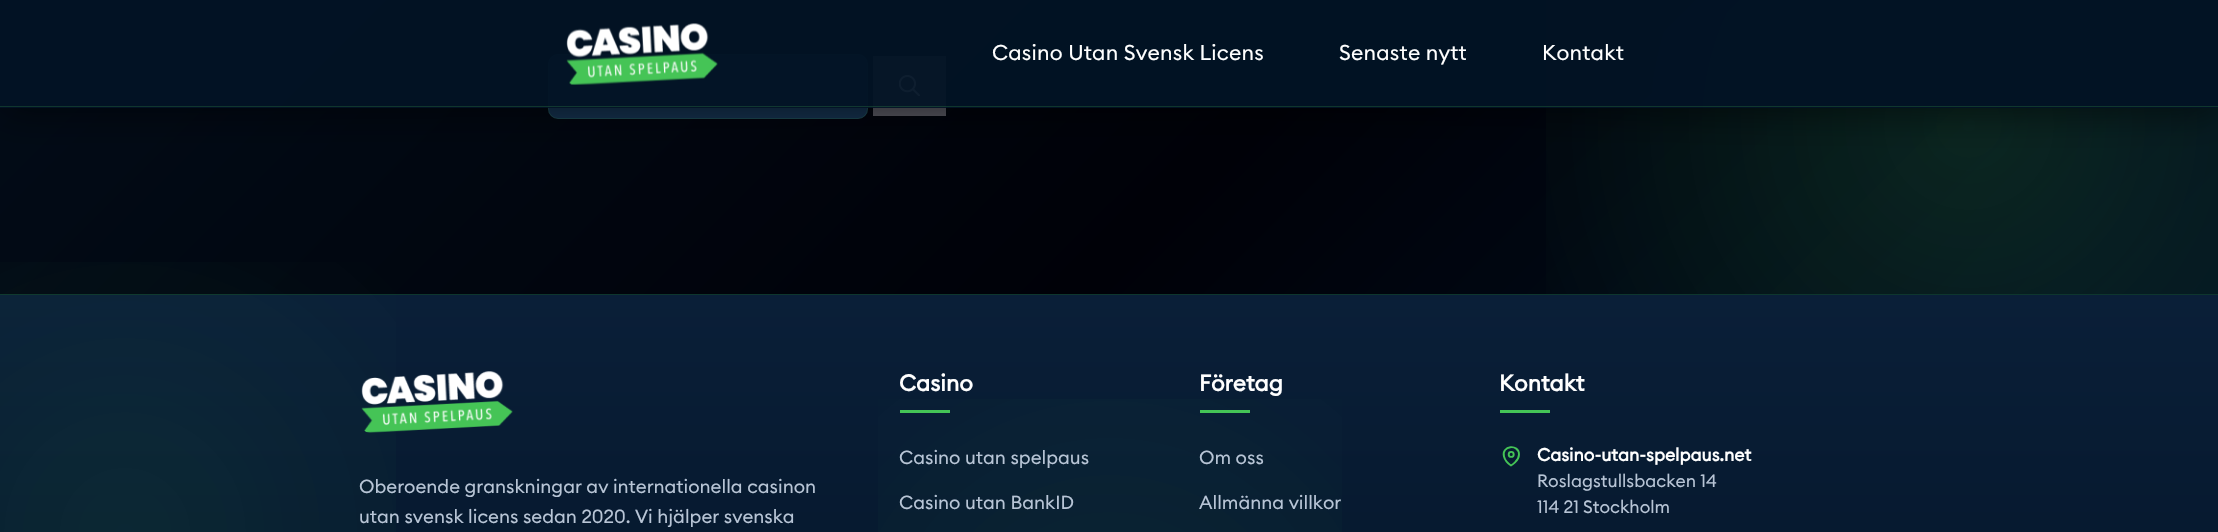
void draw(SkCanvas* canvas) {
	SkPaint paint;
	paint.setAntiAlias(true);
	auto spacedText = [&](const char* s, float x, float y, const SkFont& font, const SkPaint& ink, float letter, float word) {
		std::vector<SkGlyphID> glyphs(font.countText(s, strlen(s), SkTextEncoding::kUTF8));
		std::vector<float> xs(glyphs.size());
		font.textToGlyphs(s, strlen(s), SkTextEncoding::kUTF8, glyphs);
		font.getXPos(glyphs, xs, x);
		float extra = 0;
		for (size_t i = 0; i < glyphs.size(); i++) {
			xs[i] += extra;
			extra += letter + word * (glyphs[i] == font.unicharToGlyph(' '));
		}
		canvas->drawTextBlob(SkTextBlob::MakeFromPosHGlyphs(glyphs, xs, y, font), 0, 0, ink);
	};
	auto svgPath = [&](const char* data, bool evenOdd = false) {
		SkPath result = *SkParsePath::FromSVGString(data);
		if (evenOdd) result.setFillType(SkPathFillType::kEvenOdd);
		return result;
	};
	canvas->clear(0xffffffff);
	{
		const SkColor colors[] = {0xff020c18, 0xff000108, 0xff011224};
		const float stops[] = {0, 0.5, 1};
		const SkPoint ends[] = {{422, -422}, {1797, 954}};
		paint.setShader(SkGradientShader::MakeLinear(ends, colors, stops, 3, SkTileMode::kClamp));
		paint.setAlpha(255);
	}
	canvas->drawRect(SkRect::MakeXYWH(0, 0, 2218, 294), paint);
	paint.setShader(nullptr);
	paint.setColor(0xff14304c);
	canvas->drawRoundRect(SkRect::MakeXYWH(548, 54, 320, 65), 10, 10, paint);
	paint.setStroke(true);
	paint.setStrokeWidth(1);
	paint.setColor(0x2644c456);
	canvas->drawRoundRect(SkRect::MakeXYWH(548.5, 54.5, 319, 64), 9.5, 9.5, paint);
	paint.setStroke(false);
	paint.setColor(0xff55555e);
	canvas->drawRect(SkRect::MakeXYWH(873, 56, 73, 60), paint);
	canvas->drawImageRect(SkImages::DeferredFromEncodedData(SkData::MakeFromFileName("img1.png")), SkRect::MakeXYWH(899, 75, 21, 21), SkSamplingOptions());
	{
		const SkColor colors[] = {0x2644c456, 0x0044c456};
		const float stops[] = {0, 0.7};
		paint.setShader(SkGradientShader::MakeRadial({1969, 125}, 707, colors, stops, 2, SkTileMode::kClamp));
		paint.setAlpha(255);
	}
	canvas->drawRect(SkRect::MakeXYWH(1546, 0, 672, 294), paint);
	canvas->save();
	canvas->clipPath(svgPath("M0 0H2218V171H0ZM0 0H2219V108H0Z", true), true);
	paint.setShader(nullptr);
	paint.setColor(0x80000000);
	paint.setMaskFilter(SkMaskFilter::MakeBlur(kNormal_SkBlurStyle, 19));
	canvas->drawRect(SkRect::MakeXYWH(0, 5, 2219, 108), paint);
	paint.setMaskFilter(nullptr);
	canvas->restore();
	paint.setColor(0xf2011224);
	canvas->drawRect(SkRect::MakeXYWH(0, 0, 2218, 108), paint);
	paint.setColor(0x3344c456);
	canvas->drawRect(SkRect::MakeXYWH(0, 106, 2218, 1), paint);
	canvas->drawImageRect(SkImages::DeferredFromEncodedData(SkData::MakeFromFileName("img2.png")), SkRect::MakeXYWH(566, 23, 152, 62), SkSamplingOptions());
	SkFont f1(fontMgr->matchFamilyStyle("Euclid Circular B", SkFontStyle::Normal()), 21.25);
	f1.setSubpixel(true);
	paint.setColor(0xffffffff);
	spacedText("Casino Utan Svensk Licens", 992, 60, f1, paint, 0.2, 0);
	spacedText("Senaste nytt", 1339, 60, f1, paint, 0.2, 0);
	spacedText("Kontakt", 1542, 60, f1, paint, 0.2, 0);
	{
		const SkColor colors[] = {0xff0a1f38, 0xff011224};
		const float stops[] = {0, 1};
		const SkPoint ends[] = {{1109, 295}, {1109, 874}};
		paint.setShader(SkGradientShader::MakeLinear(ends, colors, stops, 2, SkTileMode::kClamp));
		paint.setAlpha(255);
	}
	canvas->drawRect(SkRect::MakeXYWH(0, 295, 2218, 237), paint);
	paint.setShader(nullptr);
	paint.setColor(0xff0e362e);
	canvas->drawRect(SkRect::MakeXYWH(0, 294, 2218, 1), paint);
	{
		const SkColor colors[] = {0x1444c456, 0x0044c456};
		const float stops[] = {0, 0.7};
		paint.setShader(SkGradientShader::MakeRadial({125, 533}, 530, colors, stops, 2, SkTileMode::kClamp));
		paint.setAlpha(255);
	}
	canvas->drawRect(SkRect::MakeXYWH(0, 262, 396, 270), paint);
	canvas->drawImageRect(SkImages::DeferredFromEncodedData(SkData::MakeFromFileName("img3.png")), SkRect::MakeXYWH(361, 371, 152, 62), SkSamplingOptions());
	SkFont f2(fontMgr->matchFamilyStyle("Euclid Circular B", SkFontStyle::Normal()), 18.75);
	f2.setSubpixel(true);
	paint.setShader(nullptr);
	paint.setColor(0xffb8c5d6);
	canvas->drawString("Oberoende granskningar av internationella casinon", 359, 493, f2, paint);
	canvas->drawString("utan svensk licens sedan 2020. Vi hjälper svenska", 359, 523, f2, paint);
	SkFont f3(fontMgr->matchFamilyStyle("Euclid Circular B", SkFontStyle::Bold()), 22.5);
	f3.setSubpixel(true);
	paint.setColor(0xffffffff);
	canvas->drawString("Casino", 899, 391, f3, paint);
	{
		const SkColor colors[] = {0x1444c456, 0x0044c456};
		const float stops[] = {0, 0.7};
		paint.setShader(SkGradientShader::MakeRadial({1110, 670}, 530, colors, stops, 2, SkTileMode::kClamp));
		paint.setAlpha(255);
	}
	canvas->drawRect(SkRect::MakeXYWH(878, 399, 464, 133), paint);
	paint.setShader(nullptr);
	paint.setColor(0xff44c456);
	canvas->drawRect(SkRect::MakeXYWH(900, 410, 50, 3), paint);
	paint.setColor(0xffb8c5d6);
	canvas->drawString("Casino utan spelpaus", 899, 464, f2, paint);
	canvas->drawString("Casino utan BankID", 899, 509, f2, paint);
	paint.setColor(0xffffffff);
	canvas->drawString("Företag", 1199, 391, f3, paint);
	paint.setColor(0xff44c456);
	canvas->drawRect(SkRect::MakeXYWH(1200, 410, 50, 3), paint);
	paint.setColor(0xffb8c5d6);
	canvas->drawString("Om oss", 1199, 464, f2, paint);
	canvas->drawString("Allmänna villkor", 1199, 509, f2, paint);
	paint.setColor(0xffffffff);
	canvas->drawString("Kontakt", 1499, 391, f3, paint);
	paint.setColor(0xff44c456);
	canvas->drawRect(SkRect::MakeXYWH(1500, 410, 50, 3), paint);
	paint.setStroke(true);
	paint.setStrokeWidth(1.9);
	canvas->drawPath(svgPath("M1519 454.5C1519 461 1511 465.5 1511 465.5C1508 463.5 1505 460.5 1504 456.5C1501 445.5 1519 443.5 1519 454.5Z"), paint);
	canvas->drawCircle(1511.2, 454.4, 2.5, paint);
	SkFont f4(fontMgr->matchFamilyStyle("Euclid Circular B", SkFontStyle::Bold()), 17.5);
	f4.setSubpixel(true);
	paint.setStroke(false);
	paint.setColor(0xffffffff);
	canvas->drawString("Casino-utan-spelpaus.net", 1537, 461, f4, paint);
	SkFont f5(fontMgr->matchFamilyStyle("Euclid Circular B", SkFontStyle::Normal()), 17.5);
	f5.setSubpixel(true);
	paint.setColor(0xffb8c5d6);
	canvas->drawString("Roslagstullsbacken 14", 1537, 487, f5, paint);
	canvas->drawString("114 21 Stockholm", 1537, 513, f5, paint);
}
